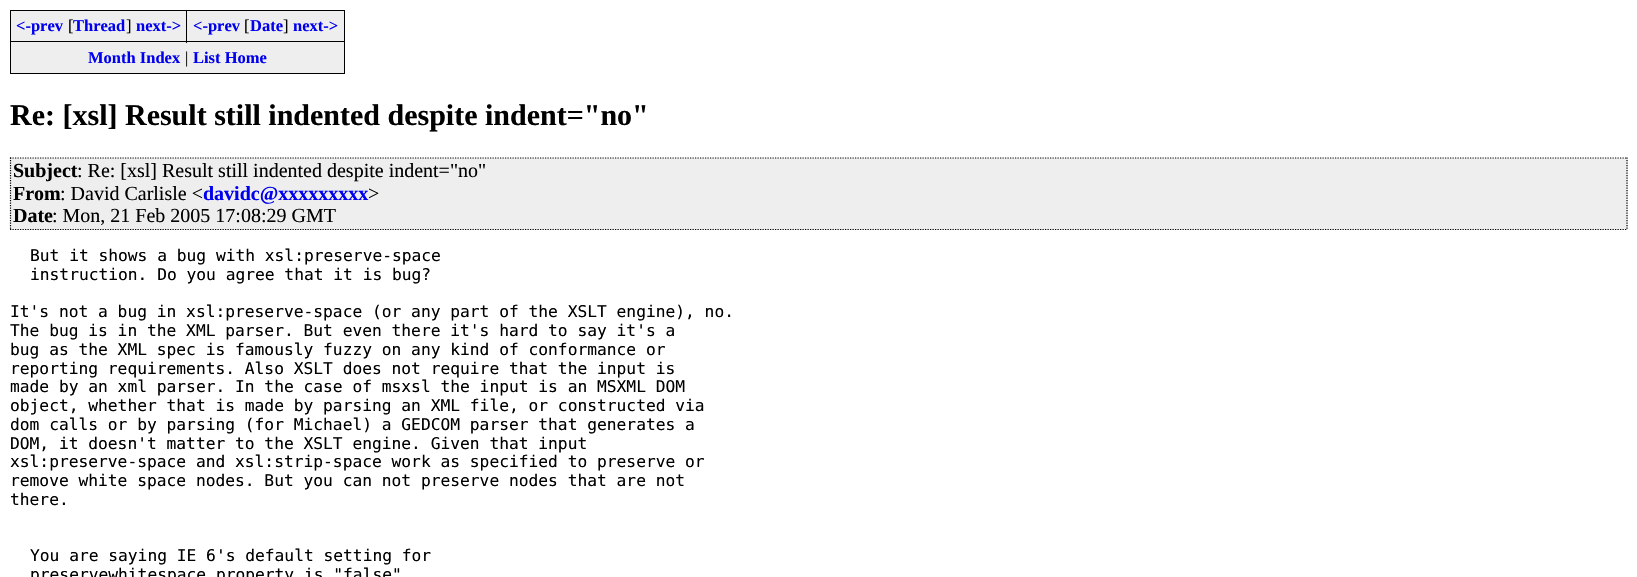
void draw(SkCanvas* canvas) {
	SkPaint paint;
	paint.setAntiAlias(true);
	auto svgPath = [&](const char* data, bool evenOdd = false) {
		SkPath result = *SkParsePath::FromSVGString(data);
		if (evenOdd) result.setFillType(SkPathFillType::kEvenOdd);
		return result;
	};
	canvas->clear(0xffffffff);
	paint.setColor(0xffeeeeee);
	canvas->drawRect(SkRect::MakeXYWH(11, 11, 333, 62), paint);
	paint.setColor(0xff000000);
	canvas->drawRect(SkRect::MakeXYWH(10, 10, 335, 1), paint);
	canvas->drawRect(SkRect::MakeXYWH(344, 10, 1, 64), paint);
	canvas->drawRect(SkRect::MakeXYWH(10, 73, 335, 1), paint);
	canvas->drawRect(SkRect::MakeXYWH(10, 10, 1, 64), paint);
	SkFont f1(fontMgr->matchFamilyStyle("Liberation Serif", SkFontStyle::Bold()), 16.5);
	f1.setSubpixel(true);
	paint.setColor(0xff0000ee);
	canvas->drawString("<-prev", 16, 31, f1, paint);
	SkFont f2(fontMgr->matchFamilyStyle("Liberation Serif", SkFontStyle::Normal()), 16.5);
	f2.setSubpixel(true);
	paint.setColor(0xff000000);
	canvas->drawString("[", 68, 31, f2, paint);
	paint.setColor(0xff0000ee);
	canvas->drawString("Thread", 73, 31, f1, paint);
	paint.setColor(0xff000000);
	canvas->drawString("]", 126, 31, f2, paint);
	paint.setColor(0xff0000ee);
	canvas->drawString("next->", 136, 31, f1, paint);
	paint.setColor(0xff000000);
	canvas->drawRect(SkRect::MakeXYWH(10, 41, 335, 1), paint);
	canvas->drawRect(SkRect::MakeXYWH(186, 10, 1, 33), paint);
	paint.setColor(0xff0000ee);
	canvas->drawString("<-prev", 193, 31, f1, paint);
	paint.setColor(0xff000000);
	canvas->drawString("[", 244, 31, f2, paint);
	paint.setColor(0xff0000ee);
	canvas->drawString("Date", 250, 31, f1, paint);
	paint.setColor(0xff000000);
	canvas->drawString("]", 283, 31, f2, paint);
	paint.setColor(0xff0000ee);
	canvas->drawString("next->", 293, 31, f1, paint);
	canvas->drawString("Month Index", 88, 63, f1, paint);
	paint.setColor(0xff000000);
	canvas->drawString("|", 185, 63, f2, paint);
	paint.setColor(0xff0000ee);
	canvas->drawString("List Home", 193, 63, f1, paint);
	SkFont f3(fontMgr->matchFamilyStyle("Liberation Serif", SkFontStyle::Bold()), 30);
	f3.setSubpixel(true);
	paint.setColor(0xff000000);
	canvas->drawString("Re: [xsl] Result still indented despite indent=\"no\"", 10, 125, f3, paint);
	paint.setColor(0xffeeeeee);
	canvas->drawRect(SkRect::MakeXYWH(10, 158, 1618, 72), paint);
	paint.setStroke(true);
	paint.setStrokeWidth(1.2);
	paint.setColor(0xff000000);
	paint.setPathEffect(SkDashPathEffect::Make({{1.25f, 1.25f}}, 0));
	canvas->drawPath(svgPath("M10 158H1627.5"), paint);
	paint.setPathEffect(nullptr);
	paint.setPathEffect(SkDashPathEffect::Make({{1.25f, 1.25f}}, 0));
	canvas->drawPath(svgPath("M1627 157.5V230"), paint);
	paint.setPathEffect(nullptr);
	paint.setPathEffect(SkDashPathEffect::Make({{1.25f, 1.25f}}, 0));
	canvas->drawPath(svgPath("M10 229.5H1627.5"), paint);
	paint.setPathEffect(nullptr);
	paint.setPathEffect(SkDashPathEffect::Make({{1.25f, 1.25f}}, 0));
	canvas->drawPath(svgPath("M10.5 157.5V230"), paint);
	paint.setPathEffect(nullptr);
	SkFont f4(fontMgr->matchFamilyStyle("Liberation Serif", SkFontStyle::Bold()), 20);
	f4.setSubpixel(true);
	paint.setStroke(false);
	canvas->drawString("Subject", 13, 177, f4, paint);
	SkFont f5(fontMgr->matchFamilyStyle("Liberation Serif", SkFontStyle::Normal()), 20);
	f5.setSubpixel(true);
	canvas->drawString(": Re: [xsl] Result still indented despite indent=\"no\"", 77, 177, f5, paint);
	canvas->drawString("From", 13, 200, f4, paint);
	canvas->drawString(": David Carlisle <", 60, 200, f5, paint);
	paint.setColor(0xff0000ee);
	canvas->drawString("davidc@xxxxxxxxx", 203, 200, f4, paint);
	paint.setColor(0xff000000);
	canvas->drawString(">", 368, 200, f5, paint);
	canvas->drawString("Date", 13, 222, f4, paint);
	canvas->drawString(": Mon, 21 Feb 2005 17:08:29 GMT", 52, 222, f5, paint);
	SkFont f6(fontMgr->matchFamilyStyle("DejaVu Sans Mono", SkFontStyle::Normal()), 16.25);
	f6.setSubpixel(true);
	canvas->drawString("But it shows a bug with xsl:preserve-space", 30, 261, f6, paint);
	canvas->drawString("instruction. Do you agree that it is bug?", 30, 280, f6, paint);
	canvas->drawString("It's not a bug in xsl:preserve-space (or any part of the XSLT engine), no.", 10, 317, f6, paint);
	canvas->drawString("The bug is in the XML parser. But even there it's hard to say it's a", 10, 336, f6, paint);
	canvas->drawString("bug as the XML spec is famously fuzzy on any kind of conformance or", 10, 355, f6, paint);
	canvas->drawString("reporting requirements. Also XSLT does not require that the input is", 10, 374, f6, paint);
	canvas->drawString("made by an xml parser. In the case of msxsl the input is an MSXML DOM", 10, 392, f6, paint);
	canvas->drawString("object, whether that is made by parsing an XML file, or constructed via", 10, 411, f6, paint);
	canvas->drawString("dom calls or by parsing (for Michael) a GEDCOM parser that generates a", 10, 430, f6, paint);
	canvas->drawString("DOM, it doesn't matter to the XSLT engine. Given that input", 10, 449, f6, paint);
	canvas->drawString("xsl:preserve-space and xsl:strip-space work as specified to preserve or", 10, 467, f6, paint);
	canvas->drawString("remove white space nodes. But you can not preserve nodes that are not", 10, 486, f6, paint);
	canvas->drawString("there.", 10, 505, f6, paint);
	canvas->drawString("You are saying IE 6's default setting for", 30, 561, f6, paint);
	canvas->drawString("preservewhitespace property is \"false\"", 30, 580, f6, paint);
}
